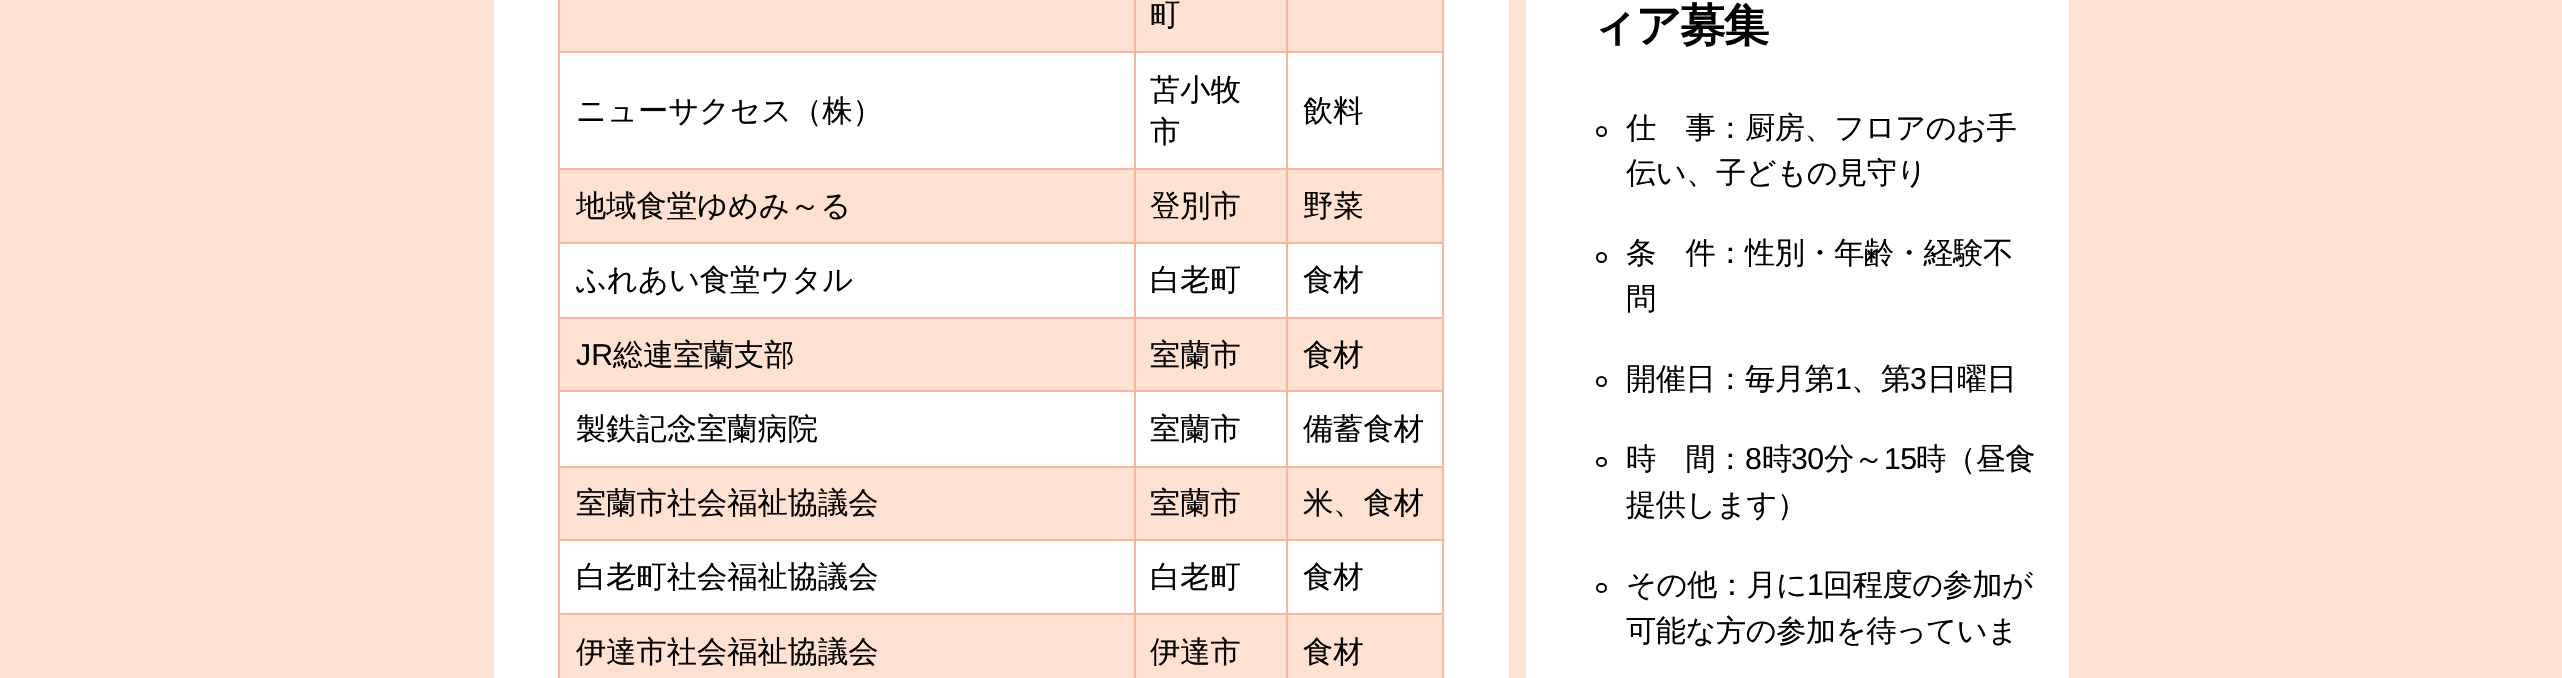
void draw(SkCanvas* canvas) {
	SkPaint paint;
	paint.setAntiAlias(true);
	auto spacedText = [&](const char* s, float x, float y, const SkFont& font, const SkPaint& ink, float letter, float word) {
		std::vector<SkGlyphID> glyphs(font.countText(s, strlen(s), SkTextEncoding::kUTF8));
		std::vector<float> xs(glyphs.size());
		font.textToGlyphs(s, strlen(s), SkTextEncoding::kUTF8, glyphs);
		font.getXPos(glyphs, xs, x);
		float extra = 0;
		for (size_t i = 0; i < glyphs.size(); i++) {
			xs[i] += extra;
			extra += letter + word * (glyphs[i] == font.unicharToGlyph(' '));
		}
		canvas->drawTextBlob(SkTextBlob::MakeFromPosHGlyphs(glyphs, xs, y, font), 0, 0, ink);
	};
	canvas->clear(0xffffe1d2);
	paint.setColor(0xffffffff);
	canvas->drawRect(SkRect::MakeXYWH(494, 0, 1015, 678), paint);
	paint.setColor(0xfff3b89f);
	canvas->drawRect(SkRect::MakeXYWH(1442, 0, 2, 678), paint);
	canvas->drawRect(SkRect::MakeXYWH(558, 0, 2, 678), paint);
	paint.setColor(0xffffe1d2);
	canvas->drawRect(SkRect::MakeXYWH(560, 0, 882, 51), paint);
	paint.setColor(0xfff3b89f);
	canvas->drawRect(SkRect::MakeXYWH(1286, 51, 156, 2), paint);
	canvas->drawRect(SkRect::MakeXYWH(1286, 168, 156, 2), paint);
	paint.setColor(0xffffe1d2);
	canvas->drawRect(SkRect::MakeXYWH(560, 170, 882, 72), paint);
	paint.setColor(0xfff3b89f);
	canvas->drawRect(SkRect::MakeXYWH(1286, 242, 156, 2), paint);
	canvas->drawRect(SkRect::MakeXYWH(1286, 317, 156, 2), paint);
	paint.setColor(0xffffe1d2);
	canvas->drawRect(SkRect::MakeXYWH(560, 319, 882, 71), paint);
	paint.setColor(0xfff3b89f);
	canvas->drawRect(SkRect::MakeXYWH(1286, 390, 156, 2), paint);
	canvas->drawRect(SkRect::MakeXYWH(1286, 466, 156, 2), paint);
	paint.setColor(0xffffe1d2);
	canvas->drawRect(SkRect::MakeXYWH(560, 468, 882, 71), paint);
	paint.setColor(0xfff3b89f);
	canvas->drawRect(SkRect::MakeXYWH(1286, 539, 156, 2), paint);
	canvas->drawRect(SkRect::MakeXYWH(1286, 613, 156, 2), paint);
	paint.setColor(0xffffe1d2);
	canvas->drawRect(SkRect::MakeXYWH(560, 615, 882, 63), paint);
	paint.setColor(0xfff3b89f);
	canvas->drawRect(SkRect::MakeXYWH(1286, 613, 2, 65), paint);
	canvas->drawRect(SkRect::MakeXYWH(1134, 613, 154, 2), paint);
	canvas->drawRect(SkRect::MakeXYWH(1286, 539, 2, 75), paint);
	canvas->drawRect(SkRect::MakeXYWH(1134, 539, 154, 2), paint);
	canvas->drawRect(SkRect::MakeXYWH(1286, 466, 2, 75), paint);
	canvas->drawRect(SkRect::MakeXYWH(1134, 466, 154, 2), paint);
	canvas->drawRect(SkRect::MakeXYWH(1286, 390, 2, 77), paint);
	canvas->drawRect(SkRect::MakeXYWH(1134, 390, 154, 2), paint);
	canvas->drawRect(SkRect::MakeXYWH(1286, 317, 2, 75), paint);
	canvas->drawRect(SkRect::MakeXYWH(1134, 317, 154, 2), paint);
	canvas->drawRect(SkRect::MakeXYWH(1286, 242, 2, 77), paint);
	canvas->drawRect(SkRect::MakeXYWH(1134, 242, 154, 2), paint);
	canvas->drawRect(SkRect::MakeXYWH(1286, 168, 2, 75), paint);
	canvas->drawRect(SkRect::MakeXYWH(1134, 168, 154, 2), paint);
	canvas->drawRect(SkRect::MakeXYWH(1286, 51, 2, 119), paint);
	canvas->drawRect(SkRect::MakeXYWH(1134, 51, 154, 2), paint);
	canvas->drawRect(SkRect::MakeXYWH(1134, 613, 2, 65), paint);
	canvas->drawRect(SkRect::MakeXYWH(560, 613, 576, 2), paint);
	canvas->drawRect(SkRect::MakeXYWH(1134, 539, 2, 75), paint);
	canvas->drawRect(SkRect::MakeXYWH(560, 539, 576, 2), paint);
	canvas->drawRect(SkRect::MakeXYWH(1134, 466, 2, 75), paint);
	canvas->drawRect(SkRect::MakeXYWH(560, 466, 576, 2), paint);
	canvas->drawRect(SkRect::MakeXYWH(1134, 390, 2, 77), paint);
	canvas->drawRect(SkRect::MakeXYWH(560, 390, 576, 2), paint);
	canvas->drawRect(SkRect::MakeXYWH(1134, 317, 2, 75), paint);
	canvas->drawRect(SkRect::MakeXYWH(560, 317, 576, 2), paint);
	canvas->drawRect(SkRect::MakeXYWH(1134, 242, 2, 77), paint);
	canvas->drawRect(SkRect::MakeXYWH(560, 242, 576, 2), paint);
	canvas->drawRect(SkRect::MakeXYWH(1134, 168, 2, 75), paint);
	canvas->drawRect(SkRect::MakeXYWH(560, 168, 576, 2), paint);
	canvas->drawRect(SkRect::MakeXYWH(1134, 51, 2, 119), paint);
	canvas->drawRect(SkRect::MakeXYWH(560, 51, 576, 2), paint);
	canvas->drawRect(SkRect::MakeXYWH(1134, 0, 2, 53), paint);
	SkFont f1(fontMgr->matchFamilyStyle("WenQuanYi Zen Hei", SkFontStyle(500, SkFontStyle::kNormal_Width, SkFontStyle::kUpright_Slant)), 30.25);
	f1.setSubpixel(true);
	paint.setColor(0xff000000);
	canvas->drawString("町", 1150, 25, f1, paint);
	paint.setColor(0xfff3b89f);
	canvas->drawRect(SkRect::MakeXYWH(1286, 0, 2, 53), paint);
	paint.setColor(0xff000000);
	canvas->drawString("ニューサクセス（株）", 576, 121, f1, paint);
	canvas->drawString("苫小牧", 1150, 100, f1, paint);
	canvas->drawString("市", 1150, 142, f1, paint);
	canvas->drawString("飲料", 1303, 121, f1, paint);
	canvas->drawString("地域食堂ゆめみ～る", 576, 216, f1, paint);
	canvas->drawString("登別市", 1150, 216, f1, paint);
	canvas->drawString("野菜", 1303, 216, f1, paint);
	canvas->drawString("ふれあい食堂ウタル", 576, 290, f1, paint);
	canvas->drawString("白老町", 1150, 290, f1, paint);
	canvas->drawString("食材", 1303, 290, f1, paint);
	SkFont f2(fontMgr->matchFamilyStyle("Liberation Sans", SkFontStyle::Normal()), 30.25);
	f2.setSubpixel(true);
	canvas->drawString("JR", 576, 365, f2, paint);
	canvas->drawString("総連室蘭支部", 613, 365, f1, paint);
	canvas->drawString("室蘭市", 1150, 365, f1, paint);
	canvas->drawString("食材", 1303, 365, f1, paint);
	canvas->drawString("製鉄記念室蘭病院", 576, 439, f1, paint);
	canvas->drawString("室蘭市", 1150, 439, f1, paint);
	canvas->drawString("備蓄食材", 1303, 439, f1, paint);
	canvas->drawString("室蘭市社会福祉協議会", 576, 513, f1, paint);
	canvas->drawString("室蘭市", 1150, 513, f1, paint);
	canvas->drawString("米、食材", 1303, 513, f1, paint);
	canvas->drawString("白老町社会福祉協議会", 576, 587, f1, paint);
	canvas->drawString("白老町", 1150, 587, f1, paint);
	canvas->drawString("食材", 1303, 587, f1, paint);
	canvas->drawString("伊達市社会福祉協議会", 576, 662, f1, paint);
	canvas->drawString("伊達市", 1150, 662, f1, paint);
	canvas->drawString("食材", 1303, 662, f1, paint);
	paint.setColor(0xffffffff);
	canvas->drawRect(SkRect::MakeXYWH(1526, 0, 543, 678), paint);
	SkFont f3(fontMgr->matchFamilyStyle("WenQuanYi Zen Hei", SkFontStyle::Bold()), 45.5);
	f3.setSubpixel(true);
	paint.setColor(0xff000000);
	spacedText("ィア募集", 1591, 41, f3, paint, -2, 0);
	paint.setStroke(true);
	paint.setStrokeWidth(2);
	canvas->drawCircle(1601.5, 131.5, 4.5, paint);
	paint.setStroke(false);
	spacedText("仕　事：厨房、フロアのお手", 1626, 138, f1, paint, -0.5, 0);
	spacedText("伝い、子どもの見守り", 1626, 183, f1, paint, -0.5, 0);
	paint.setStroke(true);
	canvas->drawCircle(1601.5, 257.5, 4.5, paint);
	paint.setStroke(false);
	spacedText("条　件：性別・年齢・経験不", 1626, 263, f1, paint, -0.5, 0);
	spacedText("問", 1626, 309, f1, paint, -0.5, 0);
	paint.setStroke(true);
	canvas->drawCircle(1601.5, 381.5, 4.5, paint);
	paint.setStroke(false);
	spacedText("開催日：毎月第", 1626, 389, f1, paint, -0.5, 0);
	spacedText("1", 1835, 389, f2, paint, -0.5, 0);
	spacedText("、第", 1851, 389, f1, paint, -0.5, 0);
	spacedText("3", 1910, 389, f2, paint, -0.5, 0);
	spacedText("日曜日", 1927, 389, f1, paint, -0.5, 0);
	paint.setStroke(true);
	canvas->drawRoundRect(SkRect::MakeXYWH(1597, 458, 9, 8), 4, 4, paint);
	paint.setStroke(false);
	spacedText("時　間：", 1626, 469, f1, paint, -0.5, 0);
	spacedText("8", 1745, 469, f2, paint, -0.5, 0);
	spacedText("時", 1762, 469, f1, paint, -0.5, 0);
	spacedText("30", 1791, 469, f2, paint, -0.5, 0);
	spacedText("分～", 1824, 469, f1, paint, -0.5, 0);
	spacedText("15", 1884, 469, f2, paint, -0.5, 0);
	spacedText("時（昼食", 1916, 469, f1, paint, -0.5, 0);
	spacedText("提供します）", 1626, 515, f1, paint, -0.5, 0);
	paint.setStroke(true);
	canvas->drawRoundRect(SkRect::MakeXYWH(1597, 584, 9, 8), 4, 4, paint);
	paint.setStroke(false);
	spacedText("その他：月に", 1626, 595, f1, paint, -0.5, 0);
	spacedText("1", 1807, 595, f2, paint, -0.5, 0);
	spacedText("回程度の参加が", 1823, 595, f1, paint, -0.5, 0);
	spacedText("可能な方の参加を待っていま", 1626, 641, f1, paint, -0.5, 0);
}
